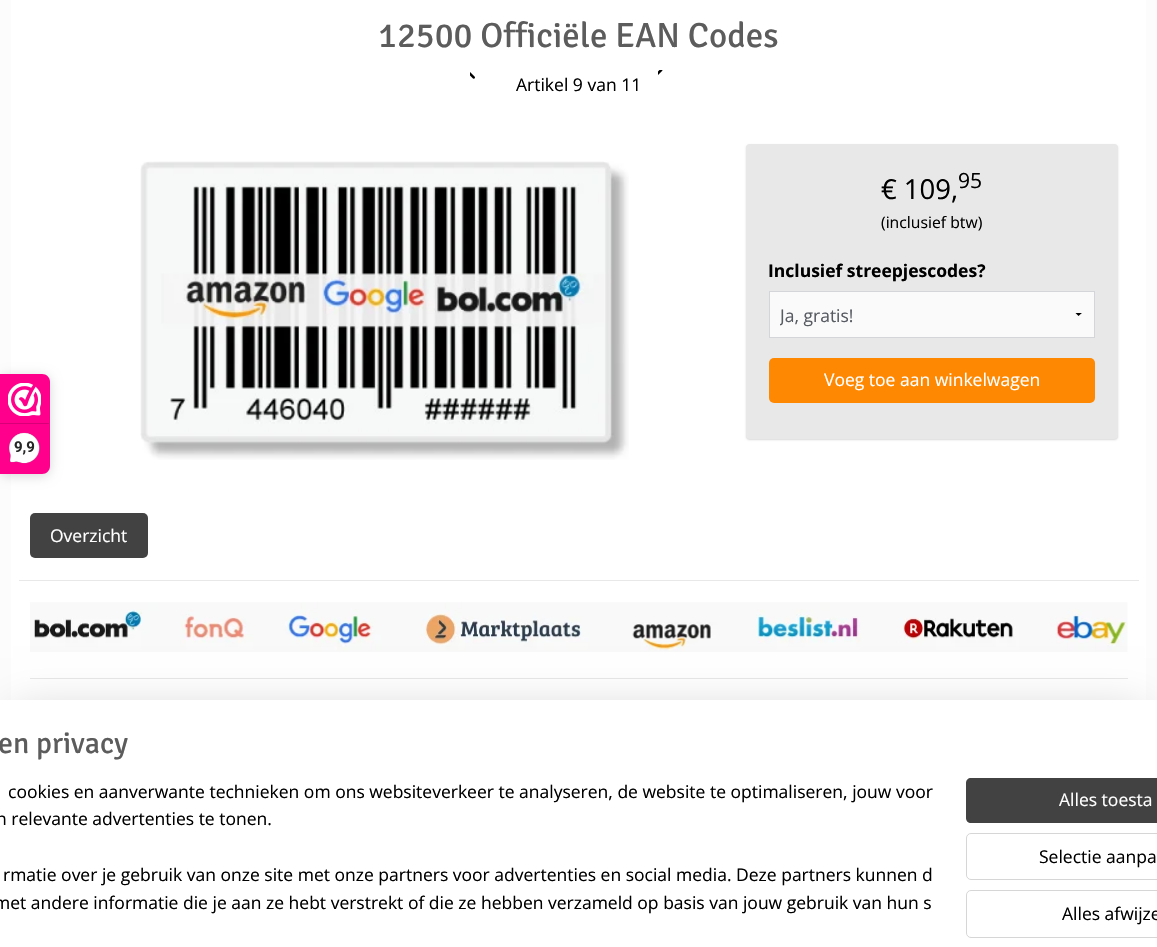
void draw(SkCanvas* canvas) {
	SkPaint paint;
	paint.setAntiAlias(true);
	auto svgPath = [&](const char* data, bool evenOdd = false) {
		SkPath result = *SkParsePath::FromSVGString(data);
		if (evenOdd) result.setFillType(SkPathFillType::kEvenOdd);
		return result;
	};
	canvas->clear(0xfffcfcfc);
	paint.setColor(0xffffffff);
	canvas->drawRect(SkRect::MakeXYWH(11, 0, 1135, 700), paint);
	paint.setColor(0x26000000);
	paint.setMaskFilter(SkMaskFilter::MakeBlur(kNormal_SkBlurStyle, 6));
	canvas->drawRoundRect(SkRect::MakeXYWH(0, 376, 50, 100), 8, 8, paint);
	paint.setMaskFilter(nullptr);
	paint.setColor(0xfffe008c);
	canvas->drawPath(svgPath("M0 374H42C46.5 374 50 377.5 50 382V466C50 470.5 46.5 474 42 474H0Z"), paint);
	canvas->drawImageRect(SkImages::DeferredFromEncodedData(SkData::MakeFromFileName("img1.png")), SkRect::MakeXYWH(8, 383, 33, 33), SkSamplingOptions());
	paint.setColor(0xffd80077);
	canvas->drawRect(SkRect::MakeXYWH(0, 423, 49, 1), paint);
	canvas->drawImageRect(SkImages::DeferredFromEncodedData(SkData::MakeFromFileName("img2.png")), SkRect::MakeXYWH(9, 432, 31, 32), SkSamplingOptions());
	SkFont f1(fontMgr->matchFamilyStyle("Roboto", SkFontStyle::Bold()), 15);
	f1.setSubpixel(true);
	paint.setColor(0xff272626);
	canvas->drawString("9,9", 14, 452, f1, paint);
	SkFont f2(fontMgr->matchFamilyStyle("Signika", SkFontStyle::Normal()), 35);
	f2.setSubpixel(true);
	paint.setColor(0xff5c5c5c);
	canvas->drawString("12500 Officiële EAN Codes", 378, 47, f2, paint);
	canvas->drawImageRect(SkImages::DeferredFromEncodedData(SkData::MakeFromFileName("img3.png")), SkRect::MakeXYWH(470, 72, 5, 7), SkSamplingOptions());
	canvas->drawImageRect(SkImages::DeferredFromEncodedData(SkData::MakeFromFileName("img4.png")), SkRect::MakeXYWH(658, 70, 5, 5), SkSamplingOptions());
	SkFont f3(fontMgr->matchFamilyStyle("Open Sans", SkFontStyle::Normal()), 17.5);
	f3.setSubpixel(true);
	paint.setColor(0xff000000);
	canvas->drawString("Artikel 9 van 11", 516, 91, f3, paint);
	canvas->drawImageRect(SkImages::DeferredFromEncodedData(SkData::MakeFromFileName("img5.png")), SkRect::MakeXYWH(140, 161, 489, 299), SkSamplingOptions());
	paint.setColor(0x26000000);
	paint.setMaskFilter(SkMaskFilter::MakeBlur(kNormal_SkBlurStyle, 1));
	canvas->drawRoundRect(SkRect::MakeXYWH(746, 145, 372, 295), 4, 4, paint);
	paint.setMaskFilter(nullptr);
	paint.setColor(0xffe8e8e8);
	canvas->drawRoundRect(SkRect::MakeXYWH(746, 144, 372, 295), 4, 4, paint);
	SkFont f4(fontMgr->matchFamilyStyle("Open Sans", SkFontStyle::Normal()), 27.5);
	f4.setSubpixel(true);
	paint.setColor(0xff000000);
	canvas->drawString("€ 109,", 881, 199, f4, paint);
	SkFont f5(fontMgr->matchFamilyStyle("Open Sans", SkFontStyle::Normal()), 21);
	f5.setSubpixel(true);
	canvas->drawString("95", 958, 188, f5, paint);
	SkFont f6(fontMgr->matchFamilyStyle("Open Sans", SkFontStyle::Normal()), 15.75);
	f6.setSubpixel(true);
	canvas->drawString("(inclusief btw)", 881, 228, f6, paint);
	SkFont f7(fontMgr->matchFamilyStyle("Open Sans", SkFontStyle::Bold()), 17.5);
	f7.setSubpixel(true);
	canvas->drawString("Inclusief streepjescodes?", 768, 277, f7, paint);
	paint.setColor(0xfffafafa);
	canvas->drawRect(SkRect::MakeXYWH(770, 292, 324, 45), paint);
	canvas->save();
	canvas->clipRect(SkRect::MakeXYWH(1064, 313, 30, 4));
	paint.setColor(0xff000000);
	canvas->drawPath(svgPath("M1082.5 312.5L1078.5 316L1075 312.5Z"), paint);
	canvas->restore();
	paint.setStroke(true);
	paint.setStrokeWidth(1);
	paint.setColor(0xffd3d5d9);
	canvas->drawRect(SkRect::MakeXYWH(769.5, 291.5, 325, 46), paint);
	canvas->save();
	canvas->clipRect(SkRect::MakeXYWH(780, 293, 304, 46));
	paint.setStroke(false);
	paint.setColor(0xff575b62);
	canvas->drawString("Ja, gratis!", 780, 322, f3, paint);
	canvas->restore();
	paint.setColor(0xffff8803);
	canvas->drawRoundRect(SkRect::MakeXYWH(769, 358, 326, 45), 5, 5, paint);
	paint.setColor(0xffffffff);
	canvas->drawString("Voeg toe aan winkelwagen", 824, 386, f3, paint);
	paint.setColor(0xff424242);
	canvas->drawRoundRect(SkRect::MakeXYWH(30, 513, 118, 45), 5, 5, paint);
	paint.setColor(0xffffffff);
	canvas->drawString("Overzicht", 50, 542, f3, paint);
	paint.setColor(0xffe8e8e8);
	canvas->drawRect(SkRect::MakeXYWH(19, 580, 1120, 1), paint);
	canvas->drawImageRect(SkImages::DeferredFromEncodedData(SkData::MakeFromFileName("img6.png")), SkRect::MakeXYWH(30, 602, 1098, 50), SkSamplingOptions());
	canvas->drawRect(SkRect::MakeXYWH(30, 678, 1098, 1), paint);
	paint.setColor(0x33000000);
	paint.setMaskFilter(SkMaskFilter::MakeBlur(kNormal_SkBlurStyle, 22.5));
	canvas->drawRect(SkRect::MakeXYWH(13, 713, 1132, 222), paint);
	paint.setMaskFilter(nullptr);
	paint.setColor(0xffffffff);
	canvas->drawRect(SkRect::MakeXYWH(0, 700, 1157, 247), paint);
	SkFont f8(fontMgr->matchFamilyStyle("Signika", SkFontStyle::Normal()), 30);
	f8.setSubpixel(true);
	paint.setColor(0xff5c5c5c);
	canvas->drawString("en privacy", -2, 753, f8, paint);
	paint.setColor(0xff000000);
	canvas->drawString("cookies en aanverwante technieken om ons websiteverkeer te analyseren, de website te optimaliseren, jouw voor", 8, 798, f3, paint);
	canvas->drawString("n relevante advertenties te tonen.", -4, 825, f3, paint);
	canvas->drawString("rmatie over je gebruik van onze site met onze partners voor advertenties en social media. Deze partners kunnen d", 3, 881, f3, paint);
	canvas->drawString("met andere informatie die je aan ze hebt verstrekt of die ze hebben verzameld op basis van jouw gebruik van hun s", -6, 909, f3, paint);
	paint.setColor(0xff424242);
	canvas->drawPath(svgPath("M971 778H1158V823H971C968 823 966 821 966 818V783C966 780 968 778 971 778Z"), paint);
	paint.setColor(0xffffffff);
	canvas->drawString("Alles toesta", 1059, 806, f3, paint);
	paint.setStroke(true);
	paint.setColor(0xffd6d6d6);
	canvas->drawRoundRect(SkRect::MakeXYWH(966.5, 833.5, 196, 46), 4.5, 4.5, paint);
	paint.setStroke(false);
	paint.setColor(0xff000000);
	canvas->drawString("Selectie aanpa", 1039, 863, f3, paint);
	paint.setStroke(true);
	paint.setColor(0xffd6d6d6);
	canvas->drawRoundRect(SkRect::MakeXYWH(966.5, 890.5, 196, 47), 4.5, 4.5, paint);
	paint.setStroke(false);
	paint.setColor(0xff000000);
	canvas->drawString("Alles afwijze", 1062, 920, f3, paint);
}
